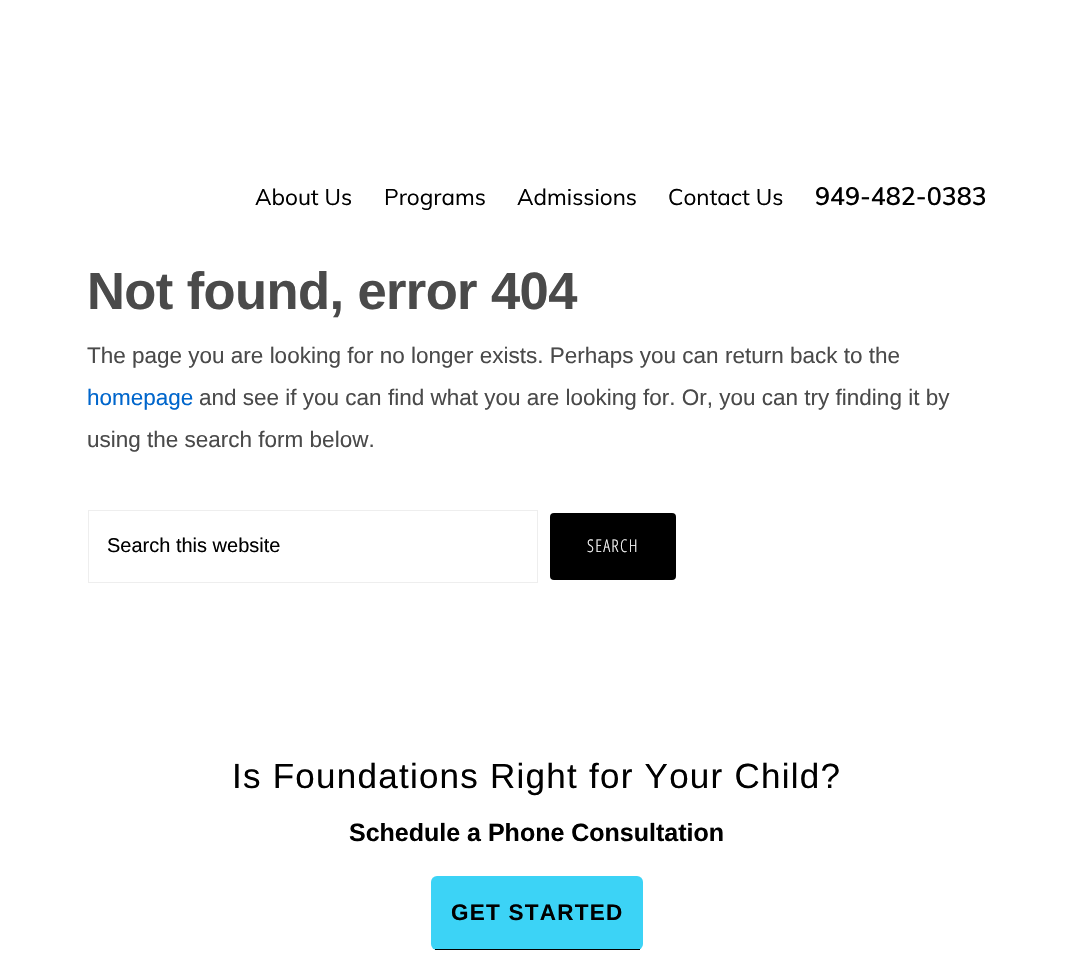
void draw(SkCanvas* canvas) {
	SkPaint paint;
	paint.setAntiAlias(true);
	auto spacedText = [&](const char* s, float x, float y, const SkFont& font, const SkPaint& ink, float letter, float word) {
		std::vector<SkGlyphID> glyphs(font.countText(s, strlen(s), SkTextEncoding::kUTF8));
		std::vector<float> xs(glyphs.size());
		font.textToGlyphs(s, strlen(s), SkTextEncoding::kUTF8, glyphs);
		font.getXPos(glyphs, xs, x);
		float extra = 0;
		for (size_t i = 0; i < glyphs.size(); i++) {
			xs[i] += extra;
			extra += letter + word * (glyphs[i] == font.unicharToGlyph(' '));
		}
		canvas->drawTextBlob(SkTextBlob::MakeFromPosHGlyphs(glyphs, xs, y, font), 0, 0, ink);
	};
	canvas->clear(0xffffffff);
	SkFont f1(fontMgr->matchFamilyStyle("Muli", SkFontStyle::Normal()), 22.5);
	f1.setSubpixel(true);
	paint.setColor(0xff000000);
	canvas->drawString("About Us", 255, 205, f1, paint);
	canvas->drawString("Programs", 384, 205, f1, paint);
	canvas->drawString("Admissions", 517, 205, f1, paint);
	canvas->drawString("Contact Us", 668, 205, f1, paint);
	SkFont f2(fontMgr->matchFamilyStyle("Muli", SkFontStyle(600, SkFontStyle::kNormal_Width, SkFontStyle::kUpright_Slant)), 25);
	f2.setSubpixel(true);
	canvas->drawString("949-482-0383", 815, 205, f2, paint);
	SkFont f3(fontMgr->matchFamilyStyle("Liberation Sans", SkFontStyle::Bold()), 52.5);
	f3.setSubpixel(true);
	paint.setColor(0xff4a4a4a);
	spacedText("Not found, error 404", 87, 309, f3, paint, -0.6, 0);
	SkFont f4(fontMgr->matchFamilyStyle("Liberation Sans", SkFontStyle::Normal()), 22.5);
	f4.setSubpixel(true);
	canvas->drawString("The page you are looking for no longer exists. Perhaps you can return back to the", 87, 363, f4, paint);
	paint.setColor(0xff0066cc);
	canvas->drawString("homepage", 87, 405, f4, paint);
	paint.setColor(0xff4a4a4a);
	canvas->drawString("and see if you can find what you are looking for. Or, you can try finding it by", 199, 405, f4, paint);
	canvas->drawString("using the search form below.", 87, 447, f4, paint);
	paint.setStroke(true);
	paint.setStrokeWidth(1);
	paint.setColor(0xffeeeeee);
	canvas->drawRect(SkRect::MakeXYWH(88.5, 510.5, 449, 72), paint);
	SkFont f5(fontMgr->matchFamilyStyle("Liberation Sans", SkFontStyle::Normal()), 20);
	f5.setSubpixel(true);
	paint.setStroke(false);
	paint.setColor(0xff000000);
	canvas->drawString("Search this website", 107, 552, f5, paint);
	canvas->drawRoundRect(SkRect::MakeXYWH(550, 513, 126, 67), 4, 4, paint);
	SkFont f6(fontMgr->matchFamilyStyle("Open Sans Condensed", SkFontStyle(300, SkFontStyle::kNormal_Width, SkFontStyle::kUpright_Slant)), 17.5);
	f6.setSubpixel(true);
	paint.setColor(0xffffffff);
	spacedText("SEARCH", 587, 552, f6, paint, 1.25, 0);
	SkFont f7(fontMgr->matchFamilyStyle("Liberation Sans", SkFontStyle::Normal()), 35);
	f7.setSubpixel(true);
	paint.setColor(0xff000000);
	spacedText("Is Foundations Right for Your Child?", 232, 788, f7, paint, 1.25, 0);
	SkFont f8(fontMgr->matchFamilyStyle("Liberation Sans", SkFontStyle::Bold()), 25);
	f8.setSubpixel(true);
	canvas->drawString("Schedule a Phone Consultation", 349, 841, f8, paint);
	paint.setColor(0xff3cd3f6);
	canvas->drawRoundRect(SkRect::MakeXYWH(431, 876, 212, 74), 6, 6, paint);
	paint.setColor(0xff000000);
	canvas->drawRect(SkRect::MakeXYWH(435, 949, 205, 1), paint);
	SkFont f9(fontMgr->matchFamilyStyle("Liberation Sans", SkFontStyle::Bold()), 22.5);
	f9.setSubpixel(true);
	spacedText("GET STARTED", 451, 920, f9, paint, 1.25, 0);
}
